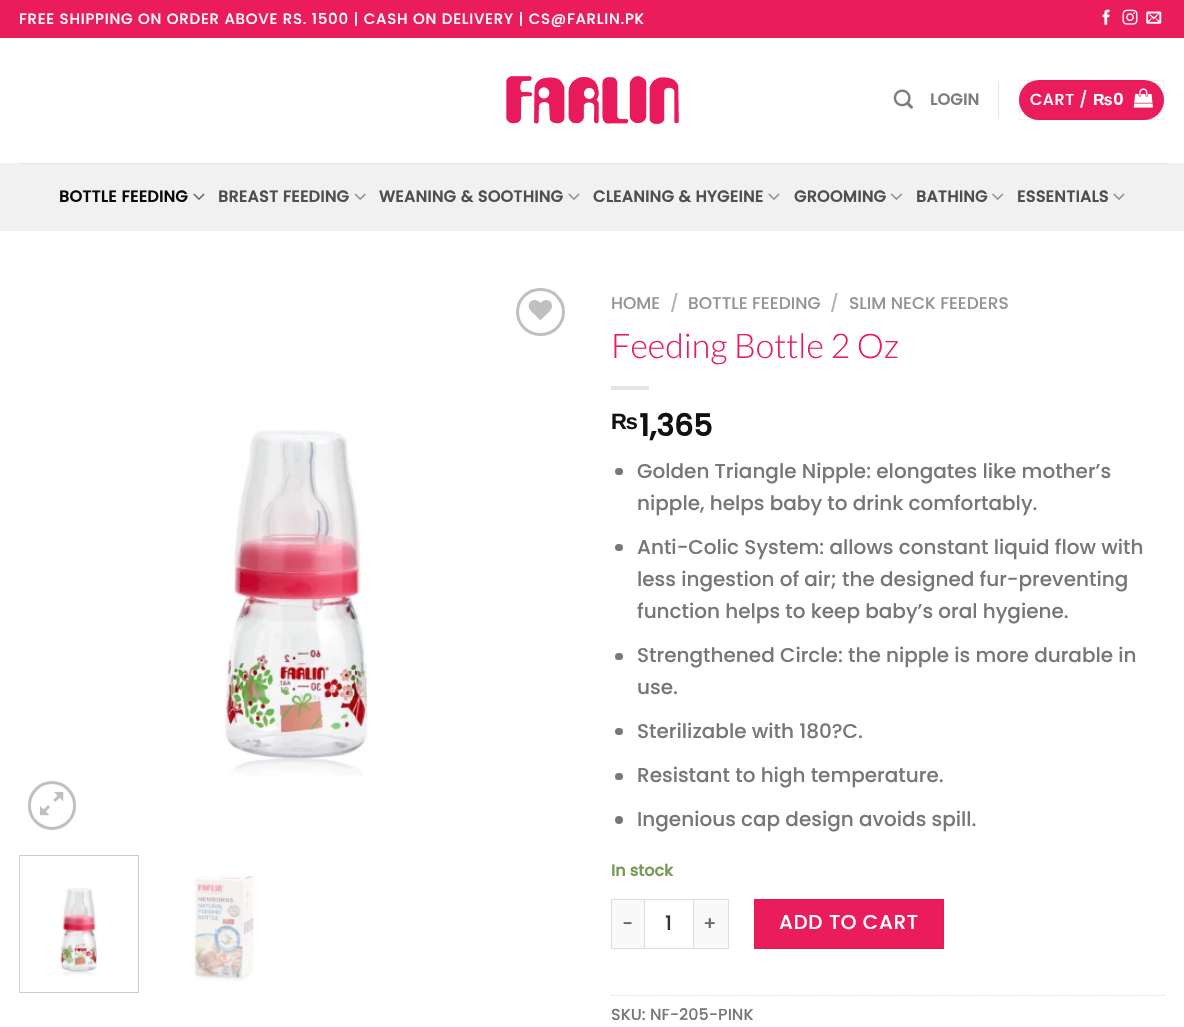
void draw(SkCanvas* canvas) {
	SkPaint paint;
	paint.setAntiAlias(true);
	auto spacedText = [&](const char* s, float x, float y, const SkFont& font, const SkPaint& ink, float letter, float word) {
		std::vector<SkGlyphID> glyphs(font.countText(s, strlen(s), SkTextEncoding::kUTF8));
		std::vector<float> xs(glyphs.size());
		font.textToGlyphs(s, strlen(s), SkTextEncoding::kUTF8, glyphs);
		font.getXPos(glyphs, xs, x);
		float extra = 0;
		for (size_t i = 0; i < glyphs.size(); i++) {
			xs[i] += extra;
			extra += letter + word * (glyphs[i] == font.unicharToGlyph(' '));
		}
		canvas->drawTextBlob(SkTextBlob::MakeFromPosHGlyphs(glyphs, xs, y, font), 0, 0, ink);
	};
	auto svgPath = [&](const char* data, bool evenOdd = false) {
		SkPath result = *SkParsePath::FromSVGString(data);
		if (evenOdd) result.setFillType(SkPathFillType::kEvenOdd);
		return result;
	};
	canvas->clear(0xffffffff);
	paint.setColor(0xffea1c5c);
	canvas->drawRect(SkRect::MakeXYWH(0, 0, 1184, 38), paint);
	SkFont f1(fontMgr->matchFamilyStyle("Poppins", SkFontStyle(500, SkFontStyle::kNormal_Width, SkFontStyle::kUpright_Slant)), 15);
	f1.setSubpixel(true);
	paint.setColor(0xffffffff);
	spacedText("FREE SHIPPING ON ORDER ABOVE RS. 1500 | CASH ON DELIVERY | CS@FARLIN.PK", 19, 24, f1, paint, 0.75, 0);
	canvas->drawImageRect(SkImages::DeferredFromEncodedData(SkData::MakeFromFileName("img1.png")), SkRect::MakeXYWH(1102, 9, 8, 16), SkSamplingOptions());
	canvas->drawImageRect(SkImages::DeferredFromEncodedData(SkData::MakeFromFileName("img2.png")), SkRect::MakeXYWH(1122, 9, 16, 16), SkSamplingOptions());
	canvas->drawImageRect(SkImages::DeferredFromEncodedData(SkData::MakeFromFileName("img3.png")), SkRect::MakeXYWH(1146, 11, 16, 13), SkSamplingOptions());
	canvas->drawImageRect(SkImages::DeferredFromEncodedData(SkData::MakeFromFileName("img4.png")), SkRect::MakeXYWH(506, 76, 173, 48), SkSamplingOptions());
	canvas->drawImageRect(SkImages::DeferredFromEncodedData(SkData::MakeFromFileName("img5.png")), SkRect::MakeXYWH(893, 89, 20, 20), SkSamplingOptions());
	SkFont f2(fontMgr->matchFamilyStyle("Poppins", SkFontStyle::Bold()), 16);
	f2.setSubpixel(true);
	paint.setColor(0xff7d7d7d);
	spacedText("LOGIN", 930, 105, f2, paint, 0.3, 0);
	paint.setColor(0xffe6e6e6);
	canvas->drawRect(SkRect::MakeXYWH(998, 81, 1, 38), paint);
	paint.setColor(0xffea1c5c);
	canvas->drawRoundRect(SkRect::MakeXYWH(1019, 80, 145, 40), 20, 20, paint);
	paint.setStroke(true);
	paint.setStrokeWidth(1);
	paint.setColor(0x0d000000);
	canvas->drawRect(SkRect::MakeXYWH(1019.5, 80.5, 144, 39), paint);
	SkFont f3(fontMgr->matchFamilyStyle("Poppins", SkFontStyle(500, SkFontStyle::kNormal_Width, SkFontStyle::kUpright_Slant)), 16);
	f3.setSubpixel(true);
	paint.setStroke(false);
	paint.setColor(0xffffffff);
	spacedText("CART /", 1030, 105, f3, paint, 0.5, 0);
	SkFont f4(fontMgr->matchFamilyStyle("Liberation Sans", SkFontStyle::Bold()), 16);
	f4.setSubpixel(true);
	spacedText("₨", 1093, 105, f4, paint, 0.5, 0);
	spacedText("0", 1113, 105, f2, paint, 0.5, 0);
	canvas->drawImageRect(SkImages::DeferredFromEncodedData(SkData::MakeFromFileName("img6.png")), SkRect::MakeXYWH(1133, 88, 20, 20), SkSamplingOptions());
	paint.setColor(0xfff1f1f1);
	canvas->drawRect(SkRect::MakeXYWH(0, 163, 1184, 68), paint);
	paint.setColor(0xffe5e5e5);
	canvas->drawRect(SkRect::MakeXYWH(19, 163, 1147, 1), paint);
	paint.setColor(0xff0a0a0a);
	spacedText("BOTTLE FEEDING", 59, 202, f2, paint, 0.3, 0);
	canvas->drawImageRect(SkImages::DeferredFromEncodedData(SkData::MakeFromFileName("img7.png")), SkRect::MakeXYWH(193, 193, 12, 7), SkSamplingOptions());
	paint.setColor(0xff4f4f4f);
	spacedText("BREAST FEEDING", 218, 202, f2, paint, 0.3, 0);
	canvas->drawImageRect(SkImages::DeferredFromEncodedData(SkData::MakeFromFileName("img8.png")), SkRect::MakeXYWH(354, 193, 12, 7), SkSamplingOptions());
	spacedText("WEANING & SOOTHING", 379, 202, f2, paint, 0.3, 0);
	canvas->drawImageRect(SkImages::DeferredFromEncodedData(SkData::MakeFromFileName("img9.png")), SkRect::MakeXYWH(568, 193, 12, 7), SkSamplingOptions());
	spacedText("CLEANING & HYGEINE", 593, 202, f2, paint, 0.3, 0);
	canvas->drawImageRect(SkImages::DeferredFromEncodedData(SkData::MakeFromFileName("img9.png")), SkRect::MakeXYWH(768, 193, 12, 7), SkSamplingOptions());
	spacedText("GROOMING", 794, 202, f2, paint, 0.3, 0);
	canvas->drawImageRect(SkImages::DeferredFromEncodedData(SkData::MakeFromFileName("img10.png")), SkRect::MakeXYWH(890, 193, 12, 7), SkSamplingOptions());
	spacedText("BATHING", 916, 202, f2, paint, 0.3, 0);
	canvas->drawImageRect(SkImages::DeferredFromEncodedData(SkData::MakeFromFileName("img11.png")), SkRect::MakeXYWH(992, 193, 12, 7), SkSamplingOptions());
	spacedText("ESSENTIALS", 1017, 202, f2, paint, 0.3, 0);
	canvas->drawImageRect(SkImages::DeferredFromEncodedData(SkData::MakeFromFileName("img9.png")), SkRect::MakeXYWH(1113, 193, 12, 7), SkSamplingOptions());
	paint.setStroke(true);
	paint.setStrokeWidth(3);
	paint.setColor(0xffc0c0c0);
	canvas->drawRoundRect(SkRect::MakeXYWH(517.5, 289.5, 46, 45), 22.5, 22.5, paint);
	canvas->drawImageRect(SkImages::DeferredFromEncodedData(SkData::MakeFromFileName("img12.png")), SkRect::MakeXYWH(528, 300, 24, 20), SkSamplingOptions());
	canvas->drawImageRect(SkImages::DeferredFromEncodedData(SkData::MakeFromFileName("img13.png")), SkRect::MakeXYWH(225, 430, 143, 346), SkSamplingOptions());
	canvas->drawRoundRect(SkRect::MakeXYWH(29.5, 782.5, 45, 46), 22.5, 22.5, paint);
	canvas->drawImageRect(SkImages::DeferredFromEncodedData(SkData::MakeFromFileName("img14.png")), SkRect::MakeXYWH(40, 791, 24, 25), SkSamplingOptions());
	paint.setStrokeWidth(1);
	paint.setColor(0xffcccccc);
	canvas->drawRect(SkRect::MakeXYWH(19.5, 855.5, 119, 137), paint);
	canvas->drawImageRect(SkImages::DeferredFromEncodedData(SkData::MakeFromFileName("img15.png")), SkRect::MakeXYWH(19, 856, 78, 135), SkSamplingOptions());
	canvas->drawImageRect(SkImages::DeferredFromEncodedData(SkData::MakeFromFileName("img16.png")), SkRect::MakeXYWH(194, 875, 60, 106), SkSamplingOptions());
	SkFont f5(fontMgr->matchFamilyStyle("Poppins", SkFontStyle(500, SkFontStyle::kNormal_Width, SkFontStyle::kUpright_Slant)), 17);
	f5.setSubpixel(true);
	paint.setStroke(false);
	paint.setColor(0xff949494);
	canvas->drawString("HOME", 611, 309, f5, paint);
	paint.setColor(0xffb2b2b2);
	canvas->drawString("/", 670, 309, f5, paint);
	paint.setColor(0xff949494);
	canvas->drawString("BOTTLE FEEDING", 688, 309, f5, paint);
	paint.setColor(0xffb2b2b2);
	canvas->drawString("/", 830, 309, f5, paint);
	paint.setColor(0xff949494);
	canvas->drawString("SLIM NECK FEEDERS", 849, 309, f5, paint);
	SkFont f6(fontMgr->matchFamilyStyle("Lato", SkFontStyle(300, SkFontStyle::kNormal_Width, SkFontStyle::kUpright_Slant)), 34);
	f6.setSubpixel(true);
	paint.setColor(0xffea1c5c);
	canvas->drawString("Feeding Bottle 2 Oz", 611, 358, f6, paint);
	paint.setColor(0xffe6e6e6);
	canvas->drawRect(SkRect::MakeXYWH(611, 386, 38, 4), paint);
	SkFont f7(fontMgr->matchFamilyStyle("Liberation Sans", SkFontStyle::Bold()), 22);
	f7.setSubpixel(true);
	paint.setColor(0xff111111);
	canvas->drawString("₨", 611, 429, f7, paint);
	SkFont f8(fontMgr->matchFamilyStyle("Poppins", SkFontStyle::Bold()), 30);
	f8.setSubpixel(true);
	canvas->drawString("1,365", 639, 436, f8, paint);
	paint.setColor(0xff777777);
	canvas->drawRoundRect(SkRect::MakeXYWH(615, 468, 8, 7), 3.5, 3.5, paint);
	SkFont f9(fontMgr->matchFamilyStyle("Poppins", SkFontStyle(500, SkFontStyle::kNormal_Width, SkFontStyle::kUpright_Slant)), 20);
	f9.setSubpixel(true);
	canvas->drawString("Golden Triangle Nipple: elongates like mother’s", 637, 478, f9, paint);
	canvas->drawString("nipple, helps baby to drink comfortably.", 637, 510, f9, paint);
	canvas->drawRoundRect(SkRect::MakeXYWH(615, 544, 8, 7), 3.5, 3.5, paint);
	canvas->drawString("Anti-Colic System: allows constant liquid flow with", 637, 554, f9, paint);
	canvas->drawString("less ingestion of air; the designed fur-preventing", 637, 586, f9, paint);
	canvas->drawString("function helps to keep baby’s oral hygiene.", 637, 618, f9, paint);
	canvas->drawRoundRect(SkRect::MakeXYWH(615, 653, 8, 7), 3.5, 3.5, paint);
	canvas->drawString("Strengthened Circle: the nipple is more durable in", 637, 662, f9, paint);
	canvas->drawString("use.", 637, 694, f9, paint);
	canvas->drawRoundRect(SkRect::MakeXYWH(615, 728, 8, 7), 3.5, 3.5, paint);
	canvas->drawString("Sterilizable with 180?C.", 637, 738, f9, paint);
	canvas->drawRoundRect(SkRect::MakeXYWH(615, 773, 8, 7), 3.5, 3.5, paint);
	canvas->drawString("Resistant to high temperature.", 637, 782, f9, paint);
	canvas->drawCircle(619, 820, 4, paint);
	canvas->drawString("Ingenious cap design avoids spill.", 637, 826, f9, paint);
	paint.setColor(0xff7a9c59);
	canvas->drawString("In stock", 611, 876, f2, paint);
	paint.setColor(0xfff9f9f9);
	canvas->drawRect(SkRect::MakeXYWH(612, 900, 32, 48), paint);
	paint.setColor(0xffdddddd);
	canvas->drawRect(SkRect::MakeXYWH(611, 899, 33, 1), paint);
	canvas->drawRect(SkRect::MakeXYWH(611, 948, 33, 1), paint);
	canvas->drawRect(SkRect::MakeXYWH(611, 899, 1, 50), paint);
	SkFont f10(fontMgr->matchFamilyStyle("Poppins", SkFontStyle(500, SkFontStyle::kNormal_Width, SkFontStyle::kUpright_Slant)), 19);
	f10.setSubpixel(true);
	paint.setColor(0xff666666);
	spacedText("-", 622, 930, f10, paint, 1, 0);
	paint.setStroke(true);
	paint.setColor(0xffdddddd);
	canvas->drawRect(SkRect::MakeXYWH(644.5, 899.5, 49, 49), paint);
	paint.setStroke(false);
	paint.setColor(0xff333333);
	canvas->drawString("1", 665, 930, f9, paint);
	paint.setColor(0xfff9f9f9);
	canvas->drawRect(SkRect::MakeXYWH(694, 900, 34, 48), paint);
	paint.setColor(0xffdddddd);
	canvas->drawRect(SkRect::MakeXYWH(694, 899, 35, 1), paint);
	canvas->drawRect(SkRect::MakeXYWH(728, 899, 1, 50), paint);
	canvas->drawRect(SkRect::MakeXYWH(694, 948, 35, 1), paint);
	paint.setColor(0xff666666);
	spacedText("+", 703, 930, f10, paint, 1, 0);
	paint.setColor(0xffea1c5c);
	canvas->drawRect(SkRect::MakeXYWH(754.5, 899.5, 189, 49), paint);
	paint.setStroke(true);
	paint.setColor(0xffde1b57);
	canvas->drawRect(SkRect::MakeXYWH(754.5, 899.5, 189, 49), paint);
	paint.setStroke(false);
	paint.setColor(0xffffffff);
	spacedText("ADD TO CART", 779, 929, f9, paint, 0.6, 0);
	paint.setStroke(true);
	paint.setStrokeWidth(1.2);
	paint.setColor(0xffdddddd);
	paint.setPathEffect(SkDashPathEffect::Make({{1.25f, 1.25f}}, 0));
	canvas->drawPath(svgPath("M611 995.5H1166"), paint);
	paint.setPathEffect(nullptr);
	paint.setStroke(false);
	paint.setColor(0xff777777);
	canvas->drawString("SKU: NF-205-PINK", 611, 1020, f3, paint);
}
